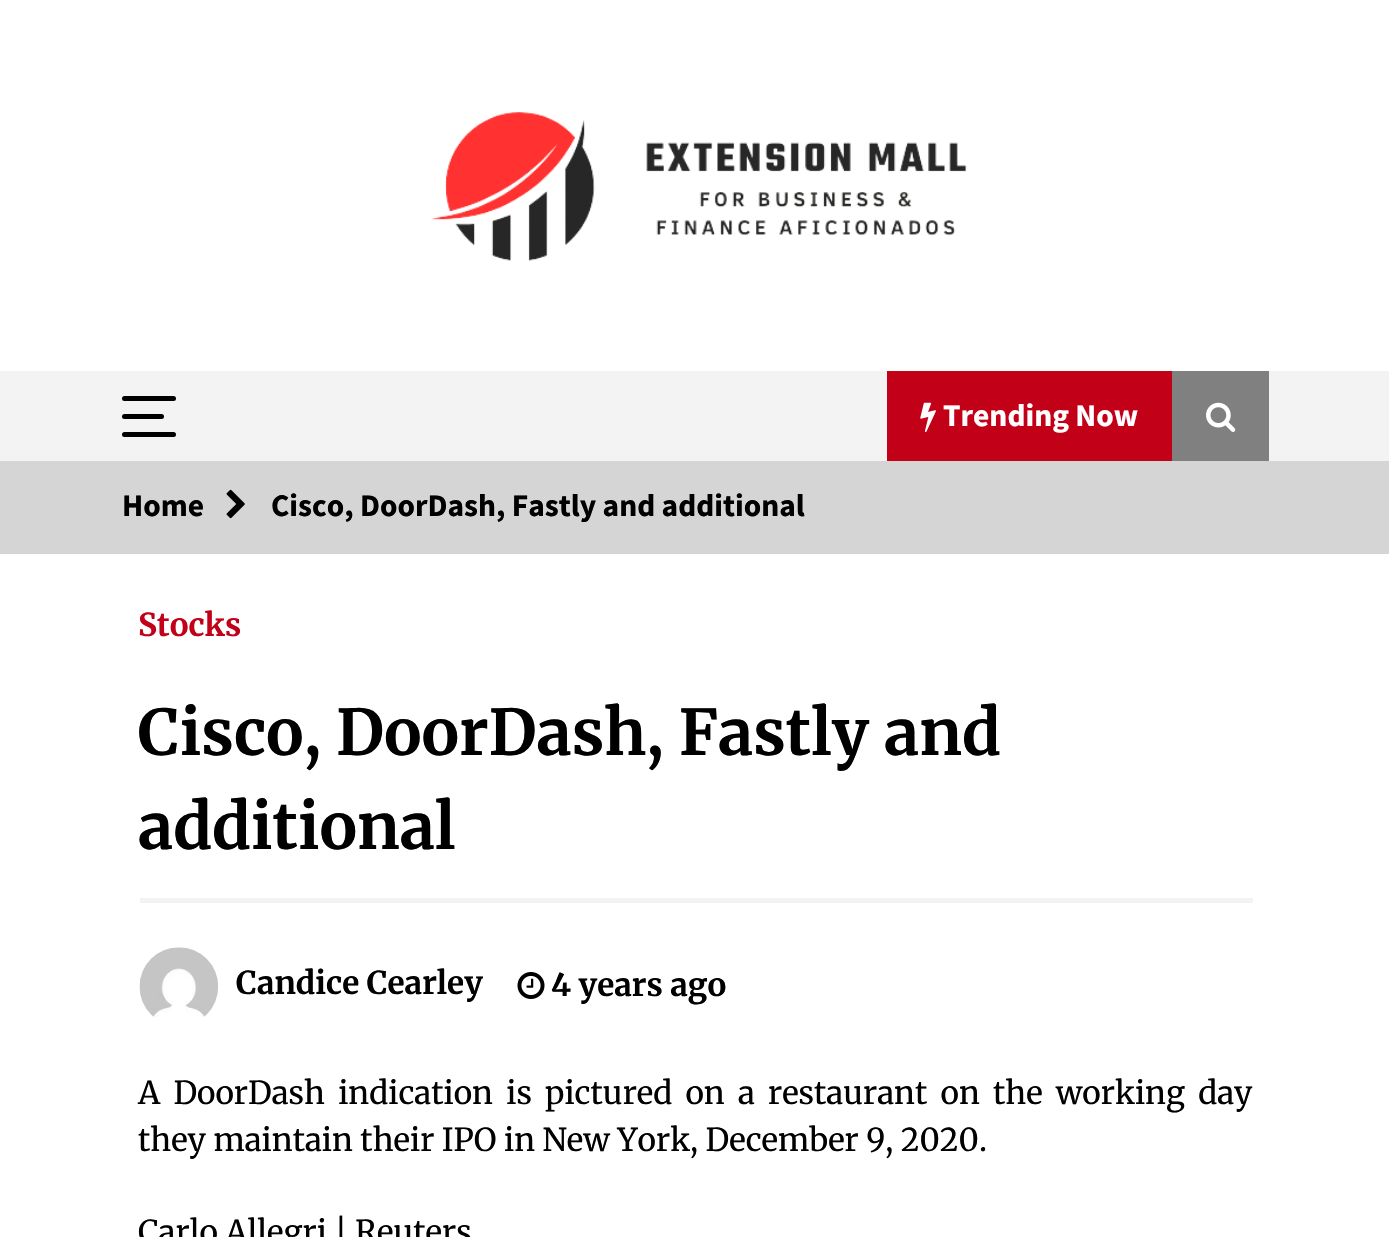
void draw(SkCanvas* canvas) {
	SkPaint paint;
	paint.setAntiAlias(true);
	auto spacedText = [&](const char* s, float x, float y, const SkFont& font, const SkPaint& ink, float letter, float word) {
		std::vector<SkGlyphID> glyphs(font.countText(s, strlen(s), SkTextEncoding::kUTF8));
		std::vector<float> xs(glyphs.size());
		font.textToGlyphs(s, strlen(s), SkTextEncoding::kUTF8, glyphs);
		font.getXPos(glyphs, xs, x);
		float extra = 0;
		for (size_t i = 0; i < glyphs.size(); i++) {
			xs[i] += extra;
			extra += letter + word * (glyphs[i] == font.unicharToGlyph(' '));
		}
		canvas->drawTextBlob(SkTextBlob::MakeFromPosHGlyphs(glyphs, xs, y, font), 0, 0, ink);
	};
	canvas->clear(0xffffffff);
	canvas->drawImageRect(SkImages::DeferredFromEncodedData(SkData::MakeFromFileName("img1.png")), SkRect::MakeXYWH(431, 112, 536, 149), SkSamplingOptions());
	paint.setColor(0xfff3f3f3);
	canvas->drawRect(SkRect::MakeXYWH(0, 371, 1389, 90), paint);
	paint.setColor(0xff000000);
	canvas->drawRoundRect(SkRect::MakeXYWH(122, 396, 54, 5), 2.5, 2.5, paint);
	canvas->drawRoundRect(SkRect::MakeXYWH(122, 432, 54, 5), 2.5, 2.5, paint);
	canvas->drawRoundRect(SkRect::MakeXYWH(122, 414, 42, 5), 2.5, 2.5, paint);
	paint.setColor(0xffc20017);
	canvas->drawRect(SkRect::MakeXYWH(887, 371, 285, 90), paint);
	canvas->drawImageRect(SkImages::DeferredFromEncodedData(SkData::MakeFromFileName("img2.png")), SkRect::MakeXYWH(920, 402, 16, 30), SkSamplingOptions());
	SkFont f1(fontMgr->matchFamilyStyle("Source Sans Pro", SkFontStyle::Bold()), 31.5);
	f1.setSubpixel(true);
	paint.setColor(0xffffffff);
	canvas->drawString("Trending Now", 943, 426, f1, paint);
	paint.setColor(0xff808080);
	canvas->drawRect(SkRect::MakeXYWH(1172, 371, 97, 90), paint);
	canvas->drawImageRect(SkImages::DeferredFromEncodedData(SkData::MakeFromFileName("img3.png")), SkRect::MakeXYWH(1206, 402, 30, 30), SkSamplingOptions());
	paint.setColor(0xffd5d5d5);
	canvas->drawRect(SkRect::MakeXYWH(0, 461, 1389, 93), paint);
	paint.setColor(0xff000000);
	canvas->drawString("Home", 122, 516, f1, paint);
	canvas->drawImageRect(SkImages::DeferredFromEncodedData(SkData::MakeFromFileName("img4.png")), SkRect::MakeXYWH(226, 489, 19, 30), SkSamplingOptions());
	canvas->drawString("Cisco, DoorDash, Fastly and additional", 271, 516, f1, paint);
	SkFont f2(fontMgr->matchFamilyStyle("Merriweather", SkFontStyle::Bold()), 31.5);
	f2.setSubpixel(true);
	paint.setColor(0xffc20017);
	canvas->drawString("Stocks", 138, 636, f2, paint);
	paint.setColor(0xfff3f3f3);
	canvas->drawRect(SkRect::MakeXYWH(140, 898, 1113, 5), paint);
	SkFont f3(fontMgr->matchFamilyStyle("Merriweather", SkFontStyle::Bold()), 63);
	f3.setSubpixel(true);
	paint.setColor(0xff000000);
	canvas->drawString("Cisco, DoorDash, Fastly and", 138, 755, f3, paint);
	canvas->drawString("additional", 138, 849, f3, paint);
	canvas->drawImageRect(SkImages::DeferredFromEncodedData(SkData::MakeFromFileName("img5.png")), SkRect::MakeXYWH(139, 947, 79, 71), SkSamplingOptions());
	canvas->drawString("Candice Cearley", 236, 994, f2, paint);
	canvas->drawImageRect(SkImages::DeferredFromEncodedData(SkData::MakeFromFileName("img6.png")), SkRect::MakeXYWH(517, 972, 28, 27), SkSamplingOptions());
	canvas->drawString("4 years ago", 551, 996, f2, paint);
	SkFont f4(fontMgr->matchFamilyStyle("Merriweather", SkFontStyle::Normal()), 31.5);
	f4.setSubpixel(true);
	spacedText("A DoorDash indication is pictured on a restaurant on the working day", 138, 1104, f4, paint, 0, 5.75);
	canvas->drawString("they maintain their IPO in New York, December 9, 2020.", 138, 1151, f4, paint);
	canvas->drawString("Carlo Allegri | Reuters", 138, 1243, f4, paint);
}
